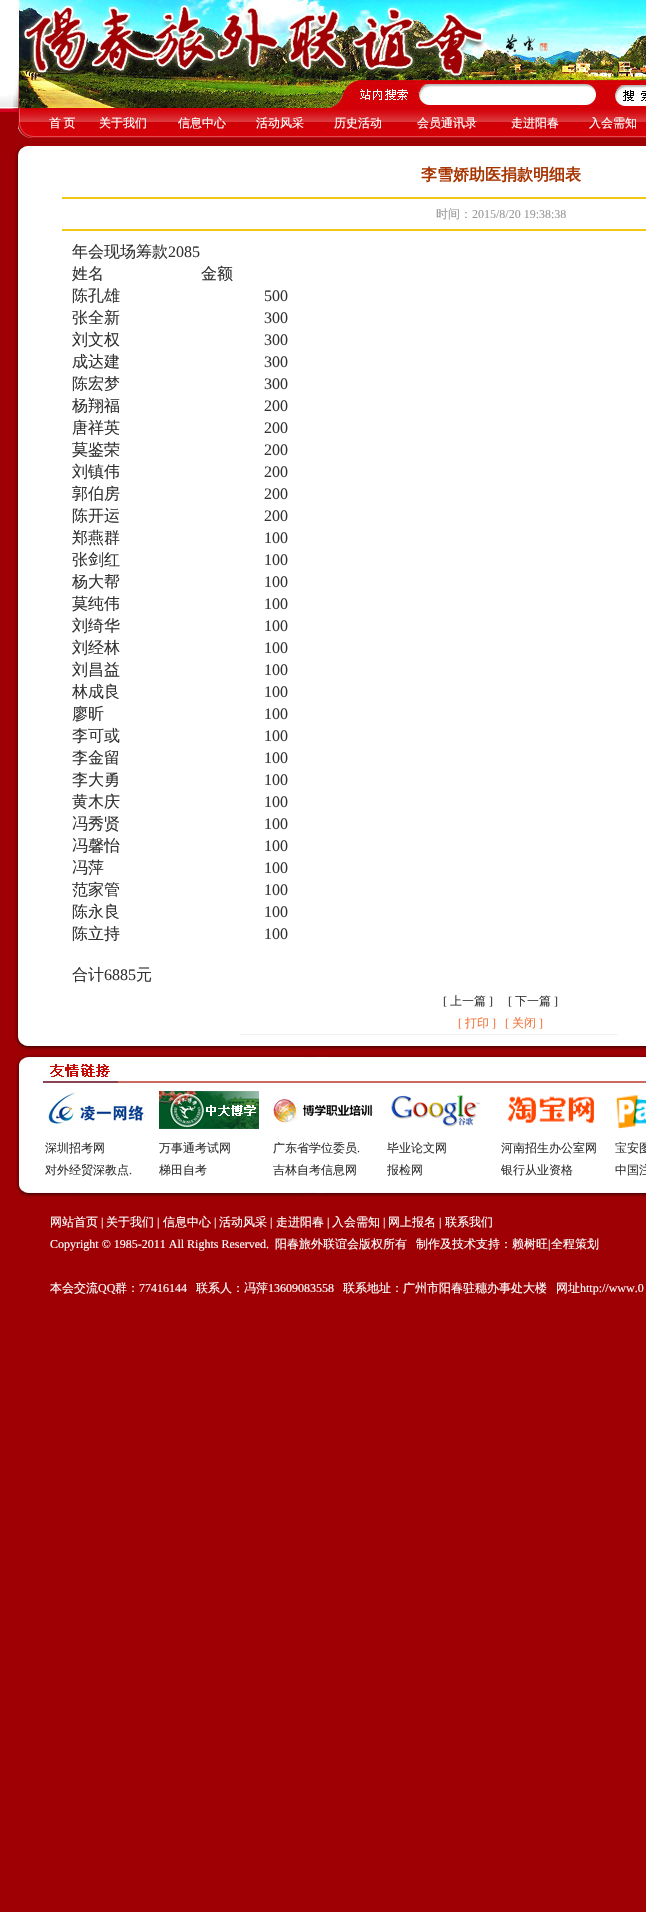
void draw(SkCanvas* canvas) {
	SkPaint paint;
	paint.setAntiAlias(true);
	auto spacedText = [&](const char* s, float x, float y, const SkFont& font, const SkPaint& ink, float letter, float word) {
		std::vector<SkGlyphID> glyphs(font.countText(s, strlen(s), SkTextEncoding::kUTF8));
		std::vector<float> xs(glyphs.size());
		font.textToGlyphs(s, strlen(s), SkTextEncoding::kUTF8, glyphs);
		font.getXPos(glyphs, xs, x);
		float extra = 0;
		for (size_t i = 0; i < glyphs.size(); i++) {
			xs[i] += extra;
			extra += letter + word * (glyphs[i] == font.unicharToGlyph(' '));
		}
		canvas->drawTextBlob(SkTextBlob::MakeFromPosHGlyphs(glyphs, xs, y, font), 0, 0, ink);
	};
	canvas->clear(0xffffffff);
	canvas->drawImageRect(SkImages::DeferredFromEncodedData(SkData::MakeFromFileName("img1.png")), SkRect::MakeXYWH(0, 96, 646, 1816), SkSamplingOptions());
	canvas->drawImageRect(SkImages::DeferredFromEncodedData(SkData::MakeFromFileName("img2.png")), SkRect::MakeXYWH(8, 0, 638, 108), SkSamplingOptions());
	canvas->drawImageRect(SkImages::DeferredFromEncodedData(SkData::MakeFromFileName("img3.png")), SkRect::MakeXYWH(615, 85, 31, 21), SkSamplingOptions());
	canvas->drawImageRect(SkImages::DeferredFromEncodedData(SkData::MakeFromFileName("img4.png")), SkRect::MakeXYWH(8, 108, 32, 30), SkSamplingOptions());
	canvas->drawImageRect(SkImages::DeferredFromEncodedData(SkData::MakeFromFileName("img5.png")), SkRect::MakeXYWH(40, 108, 44, 30), SkSamplingOptions());
	SkFont f1(fontMgr->matchFamilyStyle("WenQuanYi Zen Hei", SkFontStyle(500, SkFontStyle::kNormal_Width, SkFontStyle::kUpright_Slant)), 12);
	f1.setSubpixel(true);
	paint.setColor(0xffffffff);
	spacedText("首 页", 49, 127, f1, paint, 0, -1);
	canvas->drawImageRect(SkImages::DeferredFromEncodedData(SkData::MakeFromFileName("img6.png")), SkRect::MakeXYWH(84, 108, 78, 30), SkSamplingOptions());
	canvas->drawString("关于我们", 99, 127, f1, paint);
	canvas->drawImageRect(SkImages::DeferredFromEncodedData(SkData::MakeFromFileName("img7.png")), SkRect::MakeXYWH(162, 108, 79, 30), SkSamplingOptions());
	canvas->drawString("信息中心", 178, 127, f1, paint);
	canvas->drawImageRect(SkImages::DeferredFromEncodedData(SkData::MakeFromFileName("img6.png")), SkRect::MakeXYWH(241, 108, 78, 30), SkSamplingOptions());
	canvas->drawString("活动风采", 256, 127, f1, paint);
	canvas->drawImageRect(SkImages::DeferredFromEncodedData(SkData::MakeFromFileName("img7.png")), SkRect::MakeXYWH(319, 108, 79, 30), SkSamplingOptions());
	canvas->drawString("历史活动", 334, 127, f1, paint);
	canvas->drawImageRect(SkImages::DeferredFromEncodedData(SkData::MakeFromFileName("img8.png")), SkRect::MakeXYWH(398, 108, 98, 30), SkSamplingOptions());
	canvas->drawString("会员通讯录", 417, 127, f1, paint);
	canvas->drawImageRect(SkImages::DeferredFromEncodedData(SkData::MakeFromFileName("img6.png")), SkRect::MakeXYWH(496, 108, 78, 30), SkSamplingOptions());
	canvas->drawString("走进阳春", 511, 127, f1, paint);
	canvas->drawImageRect(SkImages::DeferredFromEncodedData(SkData::MakeFromFileName("img9.png")), SkRect::MakeXYWH(574, 108, 72, 30), SkSamplingOptions());
	canvas->drawString("入会需知", 589, 127, f1, paint);
	canvas->drawImageRect(SkImages::DeferredFromEncodedData(SkData::MakeFromFileName("img10.png")), SkRect::MakeXYWH(14, 146, 632, 13), SkSamplingOptions());
	canvas->drawImageRect(SkImages::DeferredFromEncodedData(SkData::MakeFromFileName("img11.png")), SkRect::MakeXYWH(14, 159, 632, 875), SkSamplingOptions());
	SkFont f2(fontMgr->matchFamilyStyle("WenQuanYi Zen Hei", SkFontStyle::Bold()), 16);
	f2.setSubpixel(true);
	paint.setColor(0xffa63400);
	canvas->drawString("李雪娇助医捐款明细表", 421, 180, f2, paint);
	paint.setColor(0xfff1c816);
	canvas->drawRect(SkRect::MakeXYWH(63, 198, 583, 1), paint);
	canvas->drawRect(SkRect::MakeXYWH(62, 197, 584, 1), paint);
	canvas->drawRect(SkRect::MakeXYWH(62, 197, 1, 2), paint);
	paint.setColor(0xff999999);
	canvas->drawString("时间：", 436, 218, f1, paint);
	SkFont f3(fontMgr->matchFamilyStyle("Liberation Serif", SkFontStyle::Normal()), 12);
	f3.setSubpixel(true);
	canvas->drawString("2015/8/20 19:38:38", 472, 218, f3, paint);
	paint.setColor(0xfff1c816);
	canvas->drawRect(SkRect::MakeXYWH(63, 230, 583, 1), paint);
	canvas->drawRect(SkRect::MakeXYWH(62, 229, 584, 1), paint);
	canvas->drawRect(SkRect::MakeXYWH(62, 229, 1, 2), paint);
	SkFont f4(fontMgr->matchFamilyStyle("WenQuanYi Zen Hei", SkFontStyle(500, SkFontStyle::kNormal_Width, SkFontStyle::kUpright_Slant)), 16);
	f4.setSubpixel(true);
	paint.setColor(0xff333333);
	canvas->drawString("年会现场筹款", 72, 257, f4, paint);
	SkFont f5(fontMgr->matchFamilyStyle("Liberation Serif", SkFontStyle::Normal()), 16);
	f5.setSubpixel(true);
	canvas->drawString("2085", 168, 257, f5, paint);
	canvas->drawString("姓名", 72, 279, f4, paint);
	canvas->drawString("金额", 201, 279, f4, paint);
	canvas->drawString("陈孔雄", 72, 301, f4, paint);
	canvas->drawString("500", 264, 301, f5, paint);
	canvas->drawString("张全新", 72, 323, f4, paint);
	canvas->drawString("300", 264, 323, f5, paint);
	canvas->drawString("刘文权", 72, 345, f4, paint);
	canvas->drawString("300", 264, 345, f5, paint);
	canvas->drawString("成达建", 72, 367, f4, paint);
	canvas->drawString("300", 264, 367, f5, paint);
	canvas->drawString("陈宏梦", 72, 389, f4, paint);
	canvas->drawString("300", 264, 389, f5, paint);
	canvas->drawString("杨翔福", 72, 411, f4, paint);
	canvas->drawString("200", 264, 411, f5, paint);
	canvas->drawString("唐祥英", 72, 433, f4, paint);
	canvas->drawString("200", 264, 433, f5, paint);
	canvas->drawString("莫鉴荣", 72, 455, f4, paint);
	canvas->drawString("200", 264, 455, f5, paint);
	canvas->drawString("刘镇伟", 72, 477, f4, paint);
	canvas->drawString("200", 264, 477, f5, paint);
	canvas->drawString("郭伯房", 72, 499, f4, paint);
	canvas->drawString("200", 264, 499, f5, paint);
	canvas->drawString("陈开运", 72, 521, f4, paint);
	canvas->drawString("200", 264, 521, f5, paint);
	canvas->drawString("郑燕群", 72, 543, f4, paint);
	canvas->drawString("100", 264, 543, f5, paint);
	canvas->drawString("张剑红", 72, 565, f4, paint);
	canvas->drawString("100", 264, 565, f5, paint);
	canvas->drawString("杨大帮", 72, 587, f4, paint);
	canvas->drawString("100", 264, 587, f5, paint);
	canvas->drawString("莫纯伟", 72, 609, f4, paint);
	canvas->drawString("100", 264, 609, f5, paint);
	canvas->drawString("刘绮华", 72, 631, f4, paint);
	canvas->drawString("100", 264, 631, f5, paint);
	canvas->drawString("刘经林", 72, 653, f4, paint);
	canvas->drawString("100", 264, 653, f5, paint);
	canvas->drawString("刘昌益", 72, 675, f4, paint);
	canvas->drawString("100", 264, 675, f5, paint);
	canvas->drawString("林成良", 72, 697, f4, paint);
	canvas->drawString("100", 264, 697, f5, paint);
	canvas->drawString("廖昕", 72, 719, f4, paint);
	canvas->drawString("100", 264, 719, f5, paint);
	canvas->drawString("李可或", 72, 741, f4, paint);
	canvas->drawString("100", 264, 741, f5, paint);
	canvas->drawString("李金留", 72, 763, f4, paint);
	canvas->drawString("100", 264, 763, f5, paint);
	canvas->drawString("李大勇", 72, 785, f4, paint);
	canvas->drawString("100", 264, 785, f5, paint);
	canvas->drawString("黄木庆", 72, 807, f4, paint);
	canvas->drawString("100", 264, 807, f5, paint);
	canvas->drawString("冯秀贤", 72, 829, f4, paint);
	canvas->drawString("100", 264, 829, f5, paint);
	canvas->drawString("冯馨怡", 72, 851, f4, paint);
	canvas->drawString("100", 264, 851, f5, paint);
	canvas->drawString("冯萍", 72, 873, f4, paint);
	canvas->drawString("100", 264, 873, f5, paint);
	canvas->drawString("范家管", 72, 895, f4, paint);
	canvas->drawString("100", 264, 895, f5, paint);
	canvas->drawString("陈永良", 72, 917, f4, paint);
	canvas->drawString("100", 264, 917, f5, paint);
	canvas->drawString("陈立持", 72, 939, f4, paint);
	canvas->drawString("100", 264, 939, f5, paint);
	canvas->drawString("合计", 72, 980, f4, paint);
	canvas->drawString("6885", 104, 980, f5, paint);
	canvas->drawString("元", 136, 980, f4, paint);
	canvas->drawString("[", 443, 1005, f3, paint);
	canvas->drawString("上一篇", 450, 1005, f1, paint);
	canvas->drawString("]", 489, 1005, f3, paint);
	canvas->drawString("[", 508, 1005, f3, paint);
	canvas->drawString("下一篇", 515, 1005, f1, paint);
	canvas->drawString("]", 554, 1005, f3, paint);
	paint.setColor(0xfff1763d);
	canvas->drawString("[", 458, 1027, f3, paint);
	canvas->drawString("打印", 465, 1027, f1, paint);
	canvas->drawString("]", 492, 1027, f3, paint);
	canvas->drawString("[", 505, 1027, f3, paint);
	canvas->drawString("关闭", 512, 1027, f1, paint);
	canvas->drawString("]", 539, 1027, f3, paint);
	canvas->drawImageRect(SkImages::DeferredFromEncodedData(SkData::MakeFromFileName("img12.png")), SkRect::MakeXYWH(14, 1034, 632, 17), SkSamplingOptions());
	canvas->drawImageRect(SkImages::DeferredFromEncodedData(SkData::MakeFromFileName("img13.png")), SkRect::MakeXYWH(16, 1051, 630, 32), SkSamplingOptions());
	canvas->drawImageRect(SkImages::DeferredFromEncodedData(SkData::MakeFromFileName("img14.png")), SkRect::MakeXYWH(16, 1083, 630, 98), SkSamplingOptions());
	canvas->drawImageRect(SkImages::DeferredFromEncodedData(SkData::MakeFromFileName("img15.png")), SkRect::MakeXYWH(48, 1092, 97, 33), SkSamplingOptions());
	canvas->drawImageRect(SkImages::DeferredFromEncodedData(SkData::MakeFromFileName("img16.png")), SkRect::MakeXYWH(159, 1091, 100, 38), SkSamplingOptions());
	canvas->drawImageRect(SkImages::DeferredFromEncodedData(SkData::MakeFromFileName("img17.png")), SkRect::MakeXYWH(273, 1099, 100, 24), SkSamplingOptions());
	canvas->drawImageRect(SkImages::DeferredFromEncodedData(SkData::MakeFromFileName("img18.png")), SkRect::MakeXYWH(391, 1095, 89, 32), SkSamplingOptions());
	canvas->drawImageRect(SkImages::DeferredFromEncodedData(SkData::MakeFromFileName("img19.png")), SkRect::MakeXYWH(507, 1096, 87, 27), SkSamplingOptions());
	canvas->drawImageRect(SkImages::DeferredFromEncodedData(SkData::MakeFromFileName("img20.png")), SkRect::MakeXYWH(616, 1094, 30, 35), SkSamplingOptions());
	paint.setColor(0xff333333);
	canvas->drawString("深圳招考网", 45, 1152, f1, paint);
	canvas->drawString("万事通考试网", 159, 1152, f1, paint);
	canvas->drawString("广东省学位委员", 273, 1152, f1, paint);
	canvas->drawString(".", 357, 1152, f3, paint);
	canvas->drawString("毕业论文网", 387, 1152, f1, paint);
	canvas->drawString("河南招生办公室网", 501, 1152, f1, paint);
	canvas->drawString("宝安图", 615, 1152, f1, paint);
	canvas->drawString("对外经贸深教点", 45, 1174, f1, paint);
	canvas->drawString(".", 129, 1174, f3, paint);
	canvas->drawString("梯田自考", 159, 1174, f1, paint);
	canvas->drawString("吉林自考信息网", 273, 1174, f1, paint);
	canvas->drawString("报检网", 387, 1174, f1, paint);
	canvas->drawString("银行从业资格", 501, 1174, f1, paint);
	canvas->drawString("中国注", 615, 1174, f1, paint);
	canvas->drawImageRect(SkImages::DeferredFromEncodedData(SkData::MakeFromFileName("img21.png")), SkRect::MakeXYWH(16, 1181, 630, 16), SkSamplingOptions());
	paint.setColor(0xffffffff);
	canvas->drawString("网站首页", 50, 1226, f1, paint);
	canvas->drawString("|", 101, 1226, f3, paint);
	canvas->drawString("关于我们", 106, 1226, f1, paint);
	canvas->drawString("|", 157, 1226, f3, paint);
	canvas->drawString("信息中心", 163, 1226, f1, paint);
	canvas->drawString("|", 214, 1226, f3, paint);
	canvas->drawString("活动风采", 219, 1226, f1, paint);
	canvas->drawString("|", 270, 1226, f3, paint);
	canvas->drawString("走进阳春", 276, 1226, f1, paint);
	canvas->drawString("|", 327, 1226, f3, paint);
	canvas->drawString("入会需知", 332, 1226, f1, paint);
	canvas->drawString("|", 383, 1226, f3, paint);
	canvas->drawString("网上报名", 388, 1226, f1, paint);
	canvas->drawString("|", 439, 1226, f3, paint);
	canvas->drawString("联系我们", 445, 1226, f1, paint);
	canvas->drawString("Copyright © 1985-2011 All Rights Reserved.", 50, 1248, f3, paint);
	canvas->drawString("阳春旅外联谊会版权所有", 275, 1248, f1, paint);
	canvas->drawString("制作及技术支持：赖树旺", 416, 1248, f1, paint);
	canvas->drawString("|", 548, 1248, f3, paint);
	canvas->drawString("全程策划", 551, 1248, f1, paint);
	canvas->drawString("本会交流", 50, 1292, f1, paint);
	canvas->drawString("QQ", 98, 1292, f3, paint);
	canvas->drawString("群：", 115, 1292, f1, paint);
	canvas->drawString("77416144", 139, 1292, f3, paint);
	canvas->drawString("联系人：冯萍", 196, 1292, f1, paint);
	canvas->drawString("13609083558", 268, 1292, f3, paint);
	canvas->drawString("联系地址：广州市阳春驻穗办事处大楼", 343, 1292, f1, paint);
	canvas->drawString("网址", 556, 1292, f1, paint);
	canvas->drawString("http://www.0", 580, 1292, f3, paint);
}
